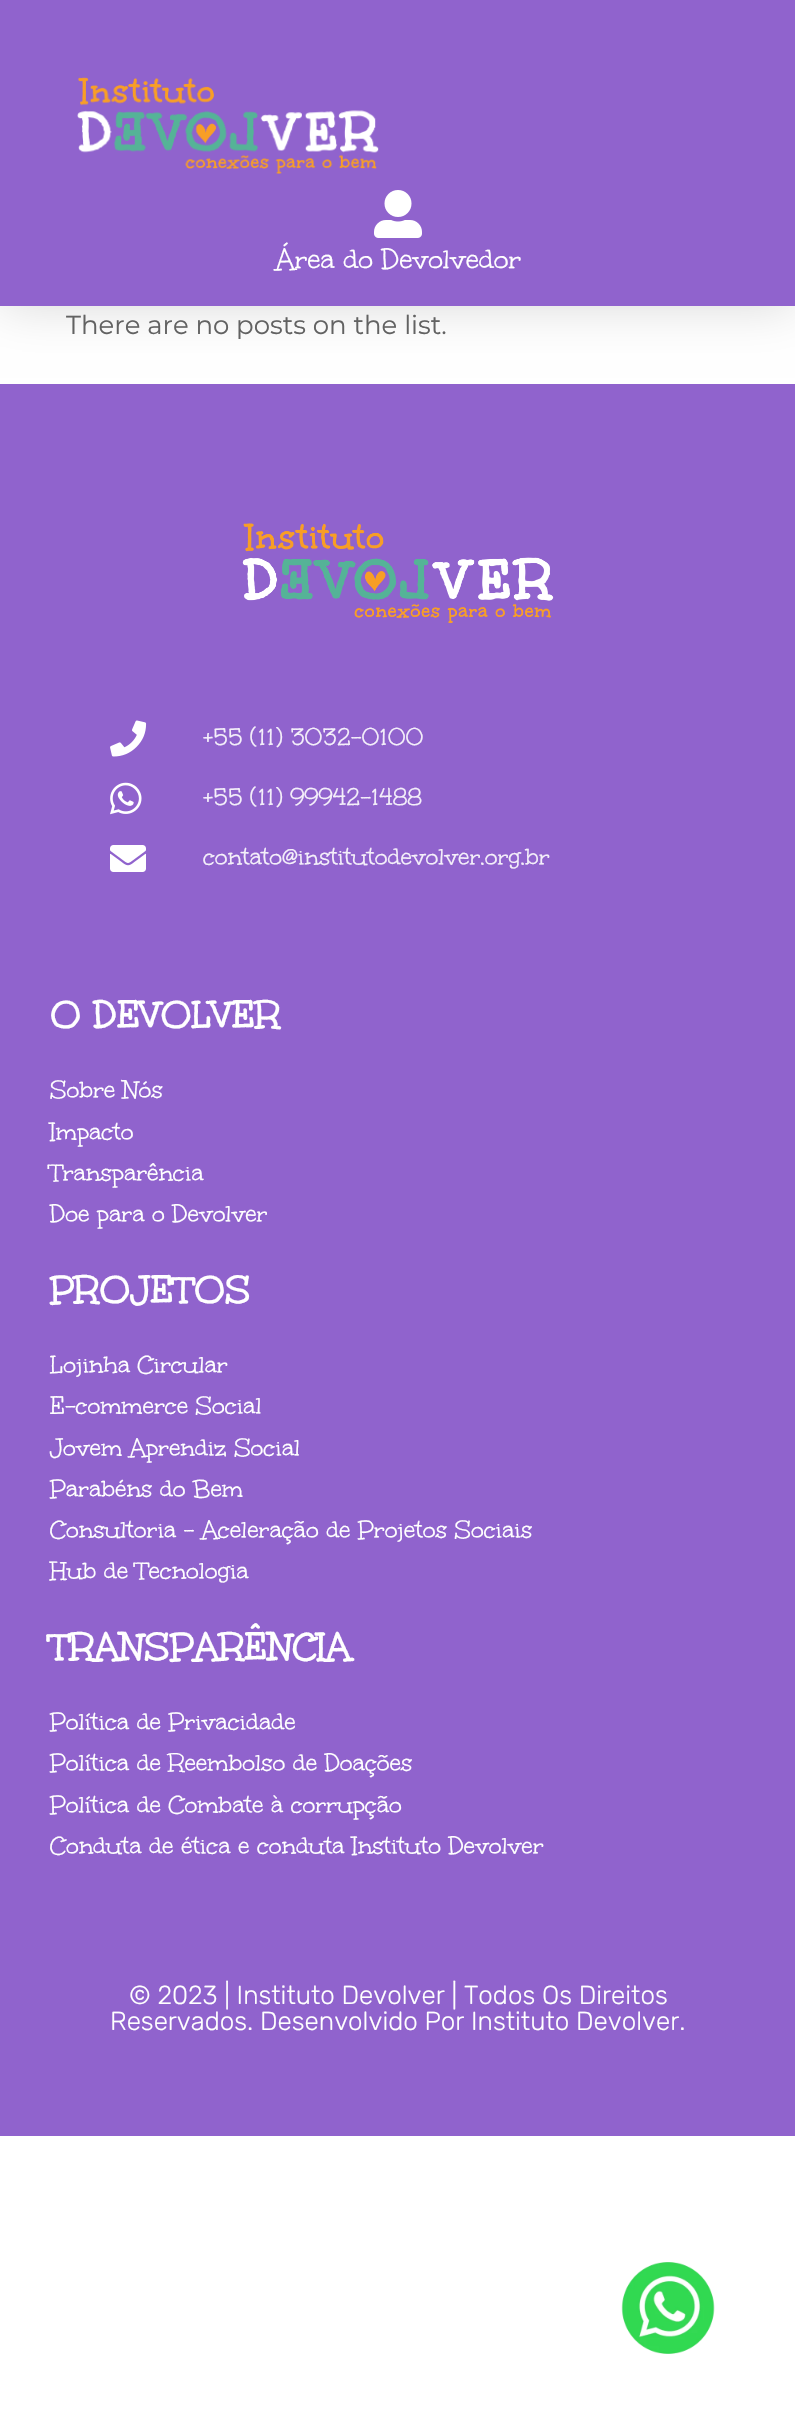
void draw(SkCanvas* canvas) {
	SkPaint paint;
	paint.setAntiAlias(true);
	canvas->clear(0xffffffff);
	paint.setColor(0x26000000);
	paint.setMaskFilter(SkMaskFilter::MakeBlur(kNormal_SkBlurStyle, 24));
	canvas->drawRect(SkRect::MakeXYWH(0, 0, 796, 306), paint);
	paint.setMaskFilter(nullptr);
	paint.setColor(0xff9063cd);
	canvas->drawRect(SkRect::MakeXYWH(0, 0, 795, 306), paint);
	canvas->drawImageRect(SkImages::DeferredFromEncodedData(SkData::MakeFromFileName("img1.png")), SkRect::MakeXYWH(77, 77, 302, 97), SkSamplingOptions());
	canvas->drawImageRect(SkImages::DeferredFromEncodedData(SkData::MakeFromFileName("img2.png")), SkRect::MakeXYWH(374, 190, 48, 48), SkSamplingOptions());
	SkFont f1(fontMgr->matchFamilyStyle("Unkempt", SkFontStyle::Normal()), 30);
	f1.setSubpixel(true);
	paint.setColor(0xffffffff);
	canvas->drawString("Área do Devolvedor", 276, 270, f1, paint);
	SkFont f2(fontMgr->matchFamilyStyle("Montserrat", SkFontStyle::Normal()), 26);
	f2.setSubpixel(true);
	paint.setColor(0xff626262);
	canvas->drawString("There are no posts on the list.", 66, 334, f2, paint);
	paint.setColor(0xff9063cd);
	canvas->drawRect(SkRect::MakeXYWH(0, 384, 795, 1752), paint);
	canvas->drawImageRect(SkImages::DeferredFromEncodedData(SkData::MakeFromFileName("img3.png")), SkRect::MakeXYWH(242, 523, 312, 100), SkSamplingOptions());
	canvas->drawImageRect(SkImages::DeferredFromEncodedData(SkData::MakeFromFileName("img4.png")), SkRect::MakeXYWH(110, 720, 37, 37), SkSamplingOptions());
	SkFont f3(fontMgr->matchFamilyStyle("Unkempt", SkFontStyle::Normal()), 26);
	f3.setSubpixel(true);
	paint.setColor(0xfff4effa);
	canvas->drawString("+55 (11) 3032-0100", 203, 746, f3, paint);
	canvas->drawImageRect(SkImages::DeferredFromEncodedData(SkData::MakeFromFileName("img5.png")), SkRect::MakeXYWH(110, 782, 32, 33), SkSamplingOptions());
	canvas->drawString("+55 (11) 99942-1488", 203, 806, f3, paint);
	canvas->drawImageRect(SkImages::DeferredFromEncodedData(SkData::MakeFromFileName("img6.png")), SkRect::MakeXYWH(110, 845, 36, 27), SkSamplingOptions());
	canvas->drawString("contato@institutodevolver.org.br", 203, 866, f3, paint);
	SkFont f4(fontMgr->matchFamilyStyle("Unkempt", SkFontStyle::Bold()), 40);
	f4.setSubpixel(true);
	paint.setColor(0xffffffff);
	canvas->drawString("O DEVOLVER", 50, 1029, f4, paint);
	canvas->drawString("Sobre Nós", 50, 1099, f3, paint);
	canvas->drawString("Impacto", 50, 1141, f3, paint);
	canvas->drawString("Transparência", 50, 1182, f3, paint);
	canvas->drawString("Doe para o Devolver", 50, 1223, f3, paint);
	canvas->drawString("PROJETOS", 50, 1304, f4, paint);
	canvas->drawString("Lojinha Circular", 50, 1374, f3, paint);
	canvas->drawString("E-commerce Social", 50, 1415, f3, paint);
	canvas->drawString("Jovem Aprendiz Social", 50, 1457, f3, paint);
	canvas->drawString("Parabéns do Bem", 50, 1498, f3, paint);
	canvas->drawString("Consultoria - Aceleração de Projetos Sociais", 50, 1539, f3, paint);
	canvas->drawString("Hub de Tecnologia", 50, 1580, f3, paint);
	canvas->drawString("TRANSPARÊNCIA", 50, 1661, f4, paint);
	canvas->drawString("Política de Privacidade", 50, 1731, f3, paint);
	canvas->drawString("Política de Reembolso de Doações", 50, 1772, f3, paint);
	canvas->drawString("Política de Combate à corrupção", 50, 1814, f3, paint);
	canvas->drawString("Conduta de ética e conduta Instituto Devolver", 50, 1855, f3, paint);
	SkFont f5(fontMgr->matchFamilyStyle("Rubik", SkFontStyle(300, SkFontStyle::kNormal_Width, SkFontStyle::kUpright_Slant)), 26);
	f5.setSubpixel(true);
	canvas->drawString("© 2023 | Instituto Devolver | Todos Os Direitos", 129, 2004, f5, paint);
	canvas->drawString("Reservados. Desenvolvido Por Instituto Devolver.", 110, 2030, f5, paint);
	canvas->drawImageRect(SkImages::DeferredFromEncodedData(SkData::MakeFromFileName("img7.png")), SkRect::MakeXYWH(621, 2262, 94, 92), SkSamplingOptions());
}
